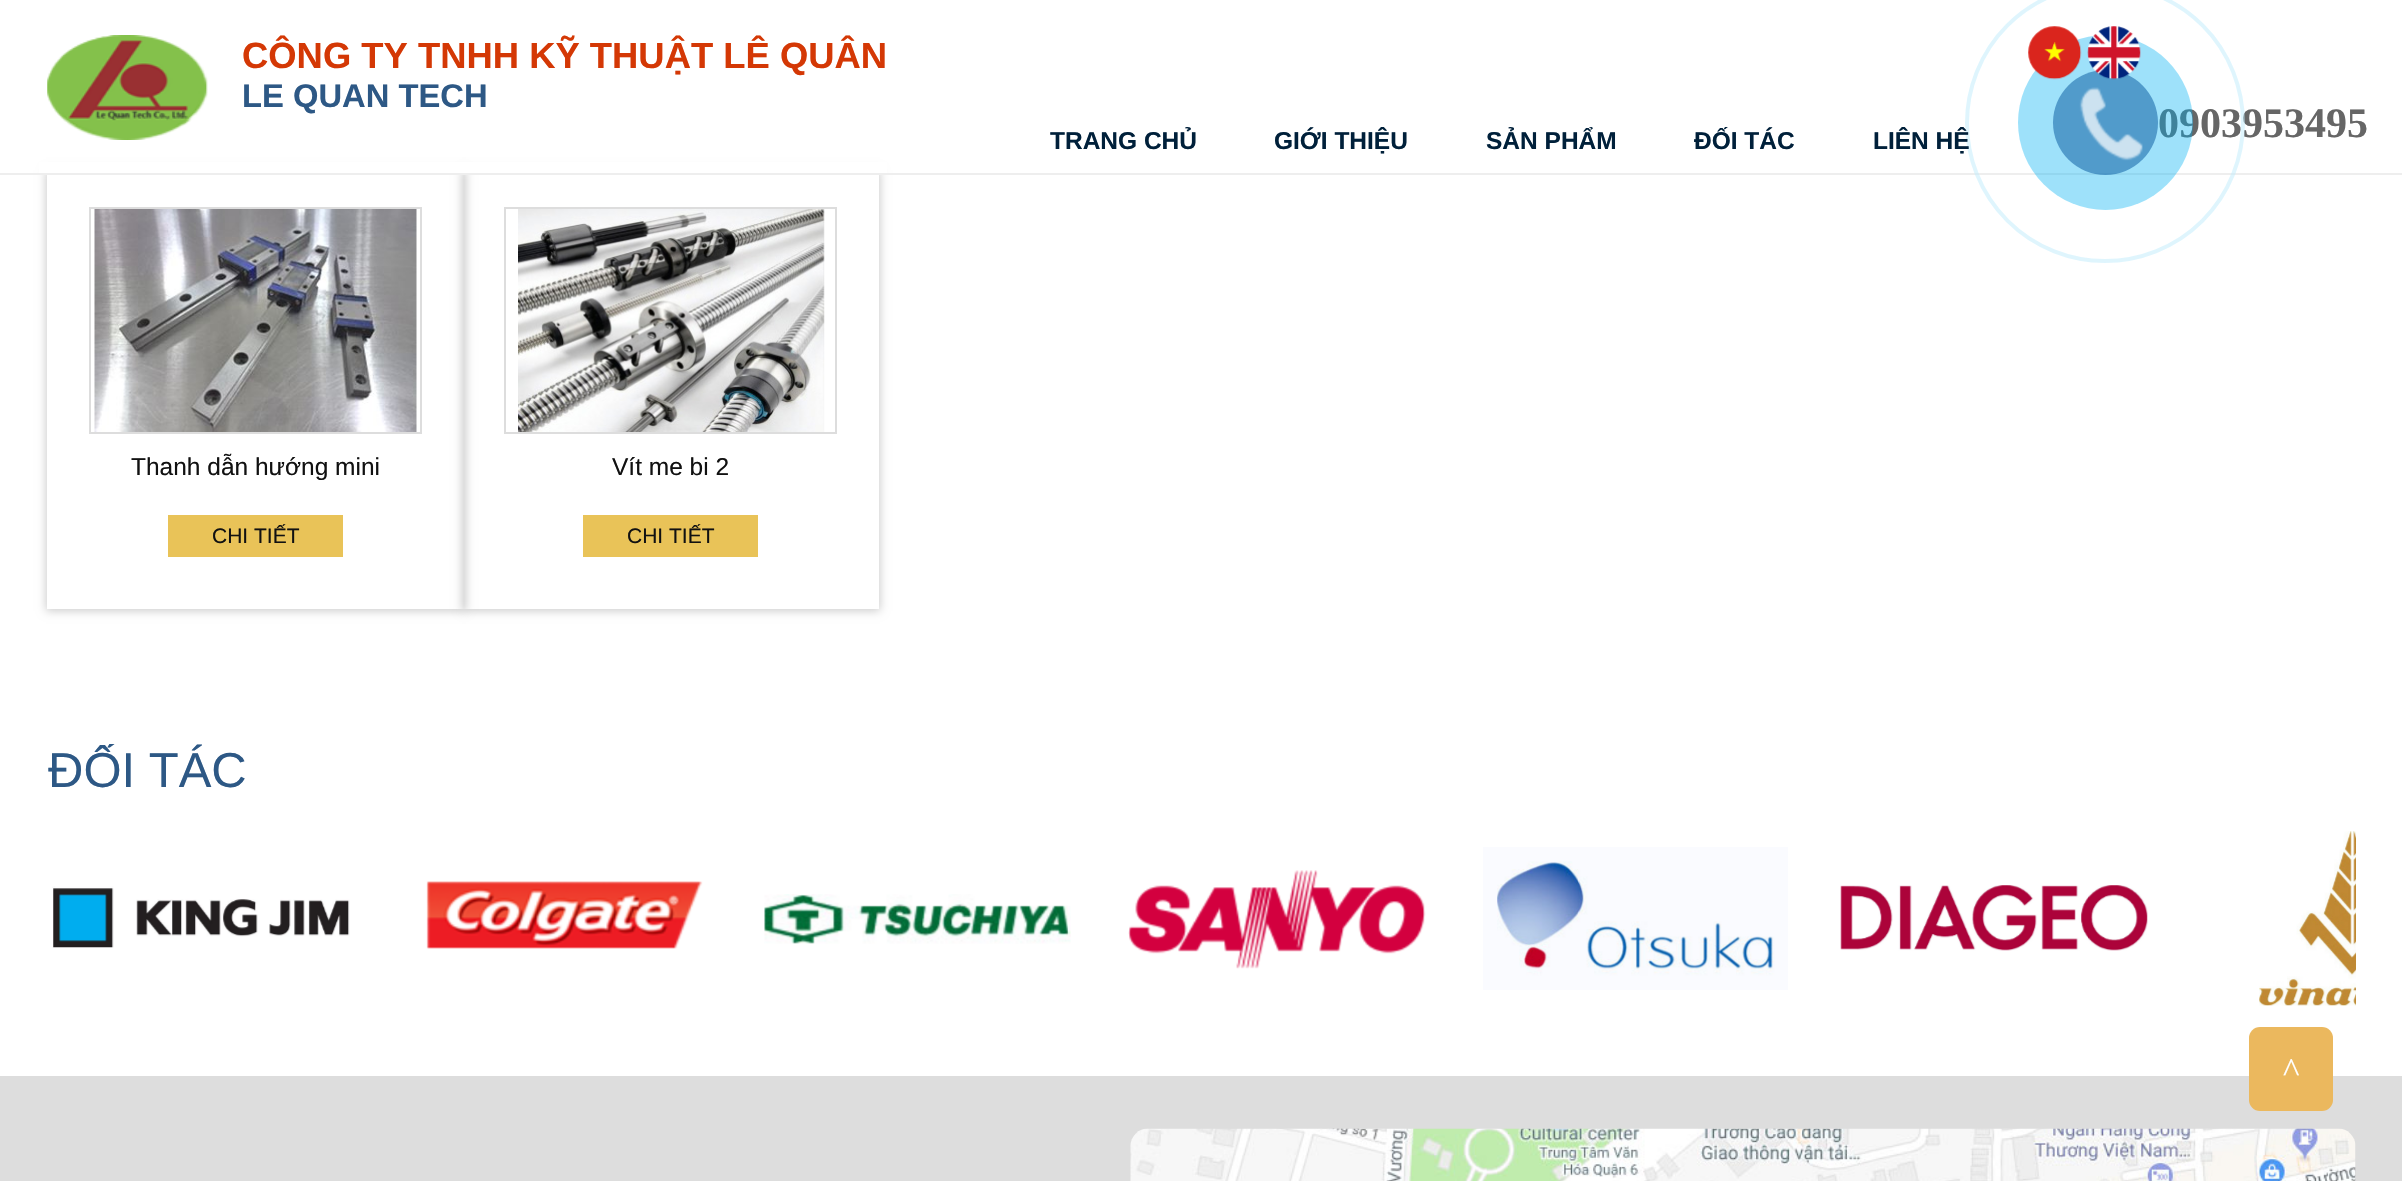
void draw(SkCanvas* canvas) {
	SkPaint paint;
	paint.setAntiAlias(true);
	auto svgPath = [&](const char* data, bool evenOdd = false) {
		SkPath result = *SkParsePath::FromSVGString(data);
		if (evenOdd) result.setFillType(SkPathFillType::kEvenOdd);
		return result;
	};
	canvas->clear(0xffffffff);
	canvas->save();
	canvas->clipPath(svgPath("M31 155H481V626H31ZM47 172H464V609H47Z", true), true);
	paint.setColor(0xffcccccc);
	paint.setMaskFilter(SkMaskFilter::MakeBlur(kNormal_SkBlurStyle, 4.5));
	canvas->drawRect(SkRect::MakeXYWH(46, 170, 420, 441), paint);
	paint.setMaskFilter(nullptr);
	canvas->restore();
	canvas->save();
	canvas->clipPath(svgPath("M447 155H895V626H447ZM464 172H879V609H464Z", true), true);
	paint.setMaskFilter(SkMaskFilter::MakeBlur(kNormal_SkBlurStyle, 4.5));
	canvas->drawRect(SkRect::MakeXYWH(462, 170, 418, 441), paint);
	paint.setMaskFilter(nullptr);
	canvas->restore();
	paint.setColor(0xffffffff);
	canvas->drawRect(SkRect::MakeXYWH(39, 162, 848, 11), paint);
	paint.setColor(0xffeeeeee);
	canvas->drawRect(SkRect::MakeXYWH(0, 173, 2402, 2), paint);
	canvas->drawImageRect(SkImages::DeferredFromEncodedData(SkData::MakeFromFileName("img1.png")), SkRect::MakeXYWH(47, 35, 161, 105), SkSamplingOptions());
	SkFont f1(fontMgr->matchFamilyStyle("Liberation Sans", SkFontStyle::Bold()), 36.4);
	f1.setSubpixel(true);
	paint.setColor(0xffd43805);
	canvas->drawString("CÔNG TY TNHH KỸ THUẬT LÊ QUÂN", 242, 68, f1, paint);
	SkFont f2(fontMgr->matchFamilyStyle("Liberation Sans", SkFontStyle::Bold()), 32.75);
	f2.setSubpixel(true);
	paint.setColor(0xff2d5885);
	canvas->drawString("LE QUAN TECH", 242, 107, f2, paint);
	SkFont f3(fontMgr->matchFamilyStyle("Liberation Serif", SkFontStyle::Bold()), 42);
	f3.setSubpixel(true);
	paint.setColor(0xff666666);
	canvas->drawString("0903953495", 2158, 137, f3, paint);
	paint.setStroke(true);
	paint.setStrokeWidth(4);
	paint.setColor(0x80bfebfc);
	canvas->drawCircle(2105, 123, 138, paint);
	paint.setStroke(false);
	paint.setColor(0x6100aff2);
	canvas->drawCircle(2105.5, 122.5, 87.5, paint);
	paint.setColor(0x7d00529c);
	canvas->drawCircle(2105.5, 122.5, 52.5, paint);
	canvas->drawImageRect(SkImages::DeferredFromEncodedData(SkData::MakeFromFileName("img2.png")), SkRect::MakeXYWH(2028, 26, 54, 54), SkSamplingOptions());
	canvas->drawImageRect(SkImages::DeferredFromEncodedData(SkData::MakeFromFileName("img3.png")), SkRect::MakeXYWH(2087, 26, 54, 54), SkSamplingOptions());
	SkFont f4(fontMgr->matchFamilyStyle("Liberation Sans", SkFontStyle::Bold()), 24.5);
	f4.setSubpixel(true);
	paint.setColor(0xff00203a);
	canvas->drawString("TRANG CHỦ", 1050, 149, f4, paint);
	canvas->drawString("GIỚI THIỆU", 1274, 149, f4, paint);
	canvas->drawString("SẢN PHẨM", 1486, 149, f4, paint);
	canvas->drawString("ĐỐI TÁC", 1694, 149, f4, paint);
	canvas->drawString("LIÊN HỆ", 1873, 149, f4, paint);
	canvas->drawImageRect(SkImages::DeferredFromEncodedData(SkData::MakeFromFileName("img4.png")), SkRect::MakeXYWH(2079, 87, 64, 74), SkSamplingOptions());
	canvas->drawImageRect(SkImages::DeferredFromEncodedData(SkData::MakeFromFileName("img5.png")), SkRect::MakeXYWH(94, 209, 323, 223), SkSamplingOptions());
	paint.setStroke(true);
	paint.setStrokeWidth(2);
	paint.setColor(0xffdddddd);
	canvas->drawRect(SkRect::MakeXYWH(90, 208, 331, 225), paint);
	SkFont f5(fontMgr->matchFamilyStyle("Liberation Sans", SkFontStyle::Normal()), 24.5);
	f5.setSubpixel(true);
	paint.setStroke(false);
	paint.setColor(0xff111111);
	canvas->drawString("Thanh dẫn hướng mini", 131, 475, f5, paint);
	paint.setColor(0xffe9c358);
	canvas->drawRect(SkRect::MakeXYWH(168, 515, 175, 42), paint);
	SkFont f6(fontMgr->matchFamilyStyle("Liberation Sans", SkFontStyle::Normal()), 21);
	f6.setSubpixel(true);
	paint.setColor(0xff111111);
	canvas->drawString("CHI TIẾT", 212, 543, f6, paint);
	canvas->drawImageRect(SkImages::DeferredFromEncodedData(SkData::MakeFromFileName("img6.png")), SkRect::MakeXYWH(518, 209, 307, 223), SkSamplingOptions());
	paint.setStroke(true);
	paint.setColor(0xffdddddd);
	canvas->drawRect(SkRect::MakeXYWH(505, 208, 331, 225), paint);
	paint.setStroke(false);
	paint.setColor(0xff111111);
	canvas->drawString("Vít me bi 2", 612, 475, f5, paint);
	paint.setColor(0xffe9c358);
	canvas->drawRect(SkRect::MakeXYWH(583, 515, 175, 42), paint);
	paint.setColor(0xff111111);
	canvas->drawString("CHI TIẾT", 627, 543, f6, paint);
	canvas->save();
	canvas->clipRect(SkRect::MakeXYWH(47, 744, 2309, 262));
	SkFont f7(fontMgr->matchFamilyStyle("Liberation Sans", SkFontStyle::Normal()), 49);
	f7.setSubpixel(true);
	paint.setColor(0xff2d5885);
	canvas->drawString("ĐỐI TÁC", 48, 787, f7, paint);
	canvas->restore();
	canvas->drawImageRect(SkImages::DeferredFromEncodedData(SkData::MakeFromFileName("img7.png")), SkRect::MakeXYWH(52, 886, 298, 62), SkSamplingOptions());
	canvas->drawImageRect(SkImages::DeferredFromEncodedData(SkData::MakeFromFileName("img8.png")), SkRect::MakeXYWH(426, 881, 277, 68), SkSamplingOptions());
	canvas->drawImageRect(SkImages::DeferredFromEncodedData(SkData::MakeFromFileName("img9.png")), SkRect::MakeXYWH(764, 894, 307, 50), SkSamplingOptions());
	canvas->drawImageRect(SkImages::DeferredFromEncodedData(SkData::MakeFromFileName("img10.png")), SkRect::MakeXYWH(1128, 870, 298, 99), SkSamplingOptions());
	canvas->drawImageRect(SkImages::DeferredFromEncodedData(SkData::MakeFromFileName("img11.png")), SkRect::MakeXYWH(1483, 847, 305, 143), SkSamplingOptions());
	canvas->drawImageRect(SkImages::DeferredFromEncodedData(SkData::MakeFromFileName("img12.png")), SkRect::MakeXYWH(1840, 885, 308, 66), SkSamplingOptions());
	canvas->drawImageRect(SkImages::DeferredFromEncodedData(SkData::MakeFromFileName("img13.png")), SkRect::MakeXYWH(2259, 831, 97, 175), SkSamplingOptions());
	paint.setColor(0xffdddddd);
	canvas->drawRect(SkRect::MakeXYWH(0, 1076, 2402, 105), paint);
	paint.setColor(0xffebb85e);
	canvas->drawRoundRect(SkRect::MakeXYWH(2249, 1027, 84, 84), 11, 11, paint);
	SkFont f8(fontMgr->matchFamilyStyle("Liberation Serif", SkFontStyle::Normal()), 35);
	f8.setSubpixel(true);
	paint.setColor(0xffffffff);
	canvas->drawString("^", 2283, 1082, f8, paint);
	canvas->drawImageRect(SkImages::DeferredFromEncodedData(SkData::MakeFromFileName("img14.png")), SkRect::MakeXYWH(1130, 1128, 1226, 53), SkSamplingOptions());
}
